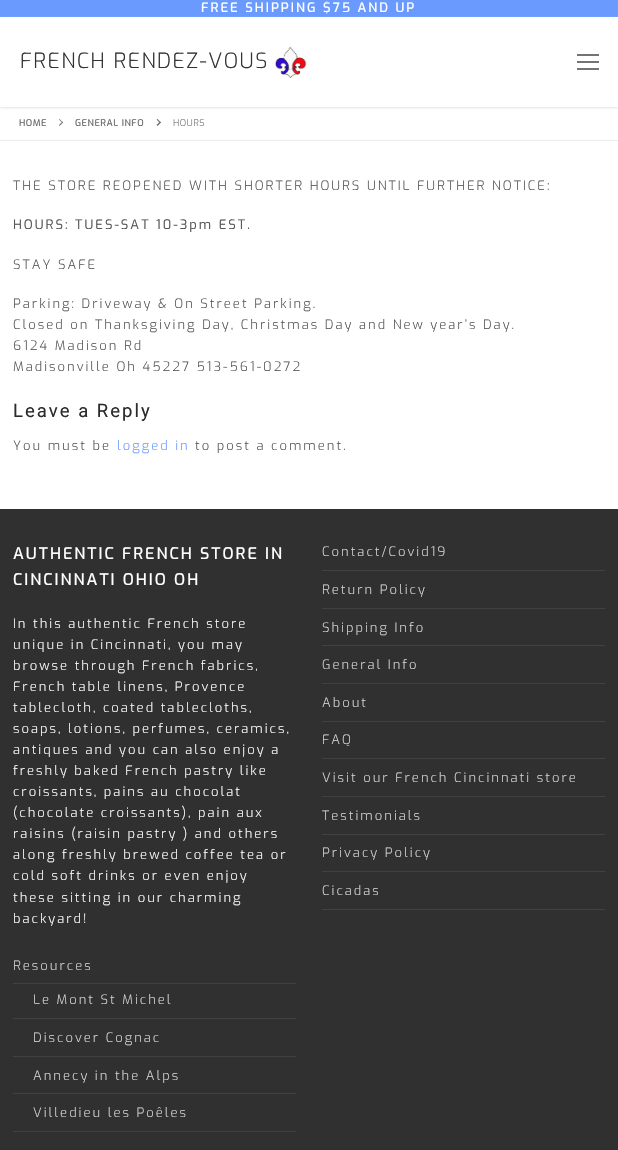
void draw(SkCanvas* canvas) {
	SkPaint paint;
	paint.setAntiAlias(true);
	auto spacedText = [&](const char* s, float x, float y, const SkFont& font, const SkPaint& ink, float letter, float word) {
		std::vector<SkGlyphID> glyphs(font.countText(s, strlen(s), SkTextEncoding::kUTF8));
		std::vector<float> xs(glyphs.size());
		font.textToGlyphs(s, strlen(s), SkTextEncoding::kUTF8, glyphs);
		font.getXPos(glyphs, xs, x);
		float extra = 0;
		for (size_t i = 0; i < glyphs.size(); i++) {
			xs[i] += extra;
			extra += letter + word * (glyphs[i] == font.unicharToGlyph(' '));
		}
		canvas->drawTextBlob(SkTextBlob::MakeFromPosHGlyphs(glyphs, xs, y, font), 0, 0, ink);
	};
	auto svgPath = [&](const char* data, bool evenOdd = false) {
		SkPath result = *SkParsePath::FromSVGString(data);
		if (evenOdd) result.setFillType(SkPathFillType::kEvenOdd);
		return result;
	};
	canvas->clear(0xffffffff);
	paint.setColor(0xff6a9afe);
	canvas->drawRect(SkRect::MakeXYWH(0, 0, 618, 17), paint);
	SkFont f1(fontMgr->matchFamilyStyle("Exo", SkFontStyle(500, SkFontStyle::kNormal_Width, SkFontStyle::kUpright_Slant)), 13);
	f1.setSubpixel(true);
	paint.setColor(0xffffffff);
	spacedText("FREE SHIPPING $75 AND UP", 201, 12, f1, paint, 2, 0);
	canvas->save();
	canvas->clipPath(svgPath("M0 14H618V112H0ZM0 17H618V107H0Z", true), true);
	paint.setColor(0xffe1e5ea);
	paint.setMaskFilter(SkMaskFilter::MakeBlur(kNormal_SkBlurStyle, 1));
	canvas->drawRect(SkRect::MakeXYWH(0, 18, 618, 90), paint);
	paint.setMaskFilter(nullptr);
	canvas->restore();
	SkFont f2(fontMgr->matchFamilyStyle("Exo", SkFontStyle(300, SkFontStyle::kNormal_Width, SkFontStyle::kUpright_Slant)), 21);
	f2.setSubpixel(true);
	paint.setColor(0xff333333);
	spacedText("FRENCH RENDEZ-VOUS", 20, 68, f2, paint, 1.5, 0);
	canvas->drawImageRect(SkImages::DeferredFromEncodedData(SkData::MakeFromFileName("img1.png")), SkRect::MakeXYWH(275, 46, 32, 32), SkSamplingOptions());
	paint.setColor(0xff737373);
	canvas->drawRect(SkRect::MakeXYWH(577, 61, 22, 2), paint);
	canvas->drawRect(SkRect::MakeXYWH(577, 54, 22, 2), paint);
	canvas->drawRect(SkRect::MakeXYWH(577, 68, 22, 2), paint);
	paint.setColor(0xffeaecee);
	canvas->drawRect(SkRect::MakeXYWH(0, 140, 618, 1), paint);
	SkFont f3(fontMgr->matchFamilyStyle("Exo", SkFontStyle(500, SkFontStyle::kNormal_Width, SkFontStyle::kUpright_Slant)), 9.25);
	f3.setSubpixel(true);
	paint.setColor(0xff6d6d6d);
	spacedText("HOME", 19, 126, f3, paint, 0.5, 0);
	canvas->drawPath(svgPath("M63 122.5L59.5 126L59 125L62.5 121.5Z"), paint);
	canvas->drawPath(svgPath("M63 122.5L62.5 123L59 119.5L59.5 119Z"), paint);
	spacedText("GENERAL INFO", 75, 126, f3, paint, 0.5, 0);
	canvas->drawPath(svgPath("M161 122.5L157.5 126L156.5 125L160 121.5Z"), paint);
	canvas->drawPath(svgPath("M161 122.5L160 123L156.5 119.5L157.5 119Z"), paint);
	SkFont f4(fontMgr->matchFamilyStyle("Exo", SkFontStyle(300, SkFontStyle::kNormal_Width, SkFontStyle::kUpright_Slant)), 9.25);
	f4.setSubpixel(true);
	spacedText("HOURS", 173, 126, f4, paint, 0.5, 0);
	SkFont f5(fontMgr->matchFamilyStyle("Exo", SkFontStyle(300, SkFontStyle::kNormal_Width, SkFontStyle::kUpright_Slant)), 13);
	f5.setSubpixel(true);
	paint.setColor(0xff545454);
	spacedText("THE STORE REOPENED WITH SHORTER HOURS UNTIL FURTHER NOTICE:", 13, 190, f5, paint, 2, 0);
	SkFont f6(fontMgr->matchFamilyStyle("Exo", SkFontStyle::Normal()), 13);
	f6.setSubpixel(true);
	spacedText("HOURS: TUES-SAT 10-3pm EST.", 13, 229, f6, paint, 2, 0);
	spacedText("STAY SAFE", 13, 269, f5, paint, 2, 0);
	spacedText("Parking: Driveway & On Street Parking.", 13, 308, f5, paint, 2, 0);
	spacedText("Closed on Thanksgiving Day, Christmas Day and New year’s Day.", 13, 329, f5, paint, 2, 0);
	spacedText("6124 Madison Rd", 13, 350, f5, paint, 2, 0);
	spacedText("Madisonville Oh 45227 513-561-0272", 13, 371, f5, paint, 2, 0);
	SkFont f7(fontMgr->matchFamilyStyle("Roboto", SkFontStyle::Normal()), 18.5);
	f7.setSubpixel(true);
	paint.setColor(0xff2b2b2b);
	spacedText("Leave a Reply", 13, 417, f7, paint, 2, 0);
	paint.setColor(0xff545454);
	spacedText("You must be", 13, 450, f5, paint, 2, 0);
	paint.setColor(0xff6a9afe);
	spacedText("logged in", 117, 450, f5, paint, 2, 0);
	paint.setColor(0xff545454);
	spacedText("to post a comment.", 195, 450, f5, paint, 2, 0);
	paint.setColor(0xff303030);
	canvas->drawRect(SkRect::MakeXYWH(0, 509, 618, 641), paint);
	SkFont f8(fontMgr->matchFamilyStyle("Exo", SkFontStyle(500, SkFontStyle::kNormal_Width, SkFontStyle::kUpright_Slant)), 16);
	f8.setSubpixel(true);
	paint.setColor(0xffffffff);
	spacedText("AUTHENTIC FRENCH STORE IN", 13, 559, f8, paint, 2, 0);
	spacedText("CINCINNATI OHIO OH", 13, 585, f8, paint, 2, 0);
	spacedText("In this authentic French store", 13, 628, f5, paint, 2, 0);
	spacedText("unique in Cincinnati, you may", 13, 649, f5, paint, 2, 0);
	spacedText("browse through French fabrics,", 13, 670, f5, paint, 2, 0);
	spacedText("French table linens, Provence", 13, 691, f5, paint, 2, 0);
	spacedText("tablecloth, coated tablecloths,", 13, 712, f5, paint, 2, 0);
	spacedText("soaps, lotions, perfumes, ceramics,", 13, 733, f5, paint, 2, 0);
	spacedText("antiques and you can also enjoy a", 13, 754, f5, paint, 2, 0);
	spacedText("freshly baked French pastry like", 13, 775, f5, paint, 2, 0);
	spacedText("croissants, pains au chocolat", 13, 796, f5, paint, 2, 0);
	spacedText("(chocolate croissants), pain aux", 13, 817, f5, paint, 2, 0);
	spacedText("raisins (raisin pastry ) and others", 13, 838, f5, paint, 2, 0);
	spacedText("along freshly brewed coffee tea or", 13, 859, f5, paint, 2, 0);
	spacedText("cold soft drinks or even enjoy", 13, 880, f5, paint, 2, 0);
	spacedText("these sitting in our charming", 13, 902, f5, paint, 2, 0);
	spacedText("backyard!", 13, 923, f5, paint, 2, 0);
	paint.setColor(0xff414141);
	canvas->drawRect(SkRect::MakeXYWH(322, 570, 283, 1), paint);
	paint.setColor(0xffd4d4d4);
	spacedText("Contact/Covid19", 322, 556, f5, paint, 2, 0);
	paint.setColor(0xff414141);
	canvas->drawRect(SkRect::MakeXYWH(322, 608, 283, 1), paint);
	paint.setColor(0xffd4d4d4);
	spacedText("Return Policy", 322, 594, f5, paint, 2, 0);
	paint.setColor(0xff414141);
	canvas->drawRect(SkRect::MakeXYWH(322, 645, 283, 1), paint);
	paint.setColor(0xffd4d4d4);
	spacedText("Shipping Info", 322, 632, f5, paint, 2, 0);
	paint.setColor(0xff414141);
	canvas->drawRect(SkRect::MakeXYWH(322, 683, 283, 1), paint);
	paint.setColor(0xffd4d4d4);
	spacedText("General Info", 322, 669, f5, paint, 2, 0);
	paint.setColor(0xff414141);
	canvas->drawRect(SkRect::MakeXYWH(322, 721, 283, 1), paint);
	paint.setColor(0xffd4d4d4);
	spacedText("About", 322, 707, f5, paint, 2, 0);
	paint.setColor(0xff414141);
	canvas->drawRect(SkRect::MakeXYWH(322, 758, 283, 1), paint);
	paint.setColor(0xffd4d4d4);
	spacedText("FAQ", 322, 744, f5, paint, 2, 0);
	paint.setColor(0xff414141);
	canvas->drawRect(SkRect::MakeXYWH(322, 796, 283, 1), paint);
	paint.setColor(0xffd4d4d4);
	spacedText("Visit our French Cincinnati store", 322, 782, f5, paint, 2, 0);
	paint.setColor(0xff414141);
	canvas->drawRect(SkRect::MakeXYWH(322, 834, 283, 1), paint);
	paint.setColor(0xffd4d4d4);
	spacedText("Testimonials", 322, 820, f5, paint, 2, 0);
	paint.setColor(0xff414141);
	canvas->drawRect(SkRect::MakeXYWH(322, 871, 283, 1), paint);
	paint.setColor(0xffd4d4d4);
	spacedText("Privacy Policy", 322, 857, f5, paint, 2, 0);
	paint.setColor(0xff414141);
	canvas->drawRect(SkRect::MakeXYWH(322, 909, 283, 1), paint);
	paint.setColor(0xffd4d4d4);
	spacedText("Cicadas", 322, 895, f5, paint, 2, 0);
	paint.setColor(0xff414141);
	canvas->drawRect(SkRect::MakeXYWH(13, 983, 283, 1), paint);
	paint.setColor(0xffd4d4d4);
	spacedText("Resources", 13, 970, f5, paint, 2, 0);
	paint.setColor(0xff414141);
	canvas->drawRect(SkRect::MakeXYWH(13, 1018, 283, 1), paint);
	paint.setColor(0xffd4d4d4);
	spacedText("Le Mont St Michel", 33, 1004, f5, paint, 2, 0);
	paint.setColor(0xff414141);
	canvas->drawRect(SkRect::MakeXYWH(13, 1056, 283, 1), paint);
	paint.setColor(0xffd4d4d4);
	spacedText("Discover Cognac", 33, 1042, f5, paint, 2, 0);
	paint.setColor(0xff414141);
	canvas->drawRect(SkRect::MakeXYWH(13, 1093, 283, 1), paint);
	paint.setColor(0xffd4d4d4);
	spacedText("Annecy in the Alps", 33, 1080, f5, paint, 2, 0);
	paint.setColor(0xff414141);
	canvas->drawRect(SkRect::MakeXYWH(13, 1131, 283, 1), paint);
	paint.setColor(0xffd4d4d4);
	spacedText("Villedieu les Poêles", 33, 1117, f5, paint, 2, 0);
}
